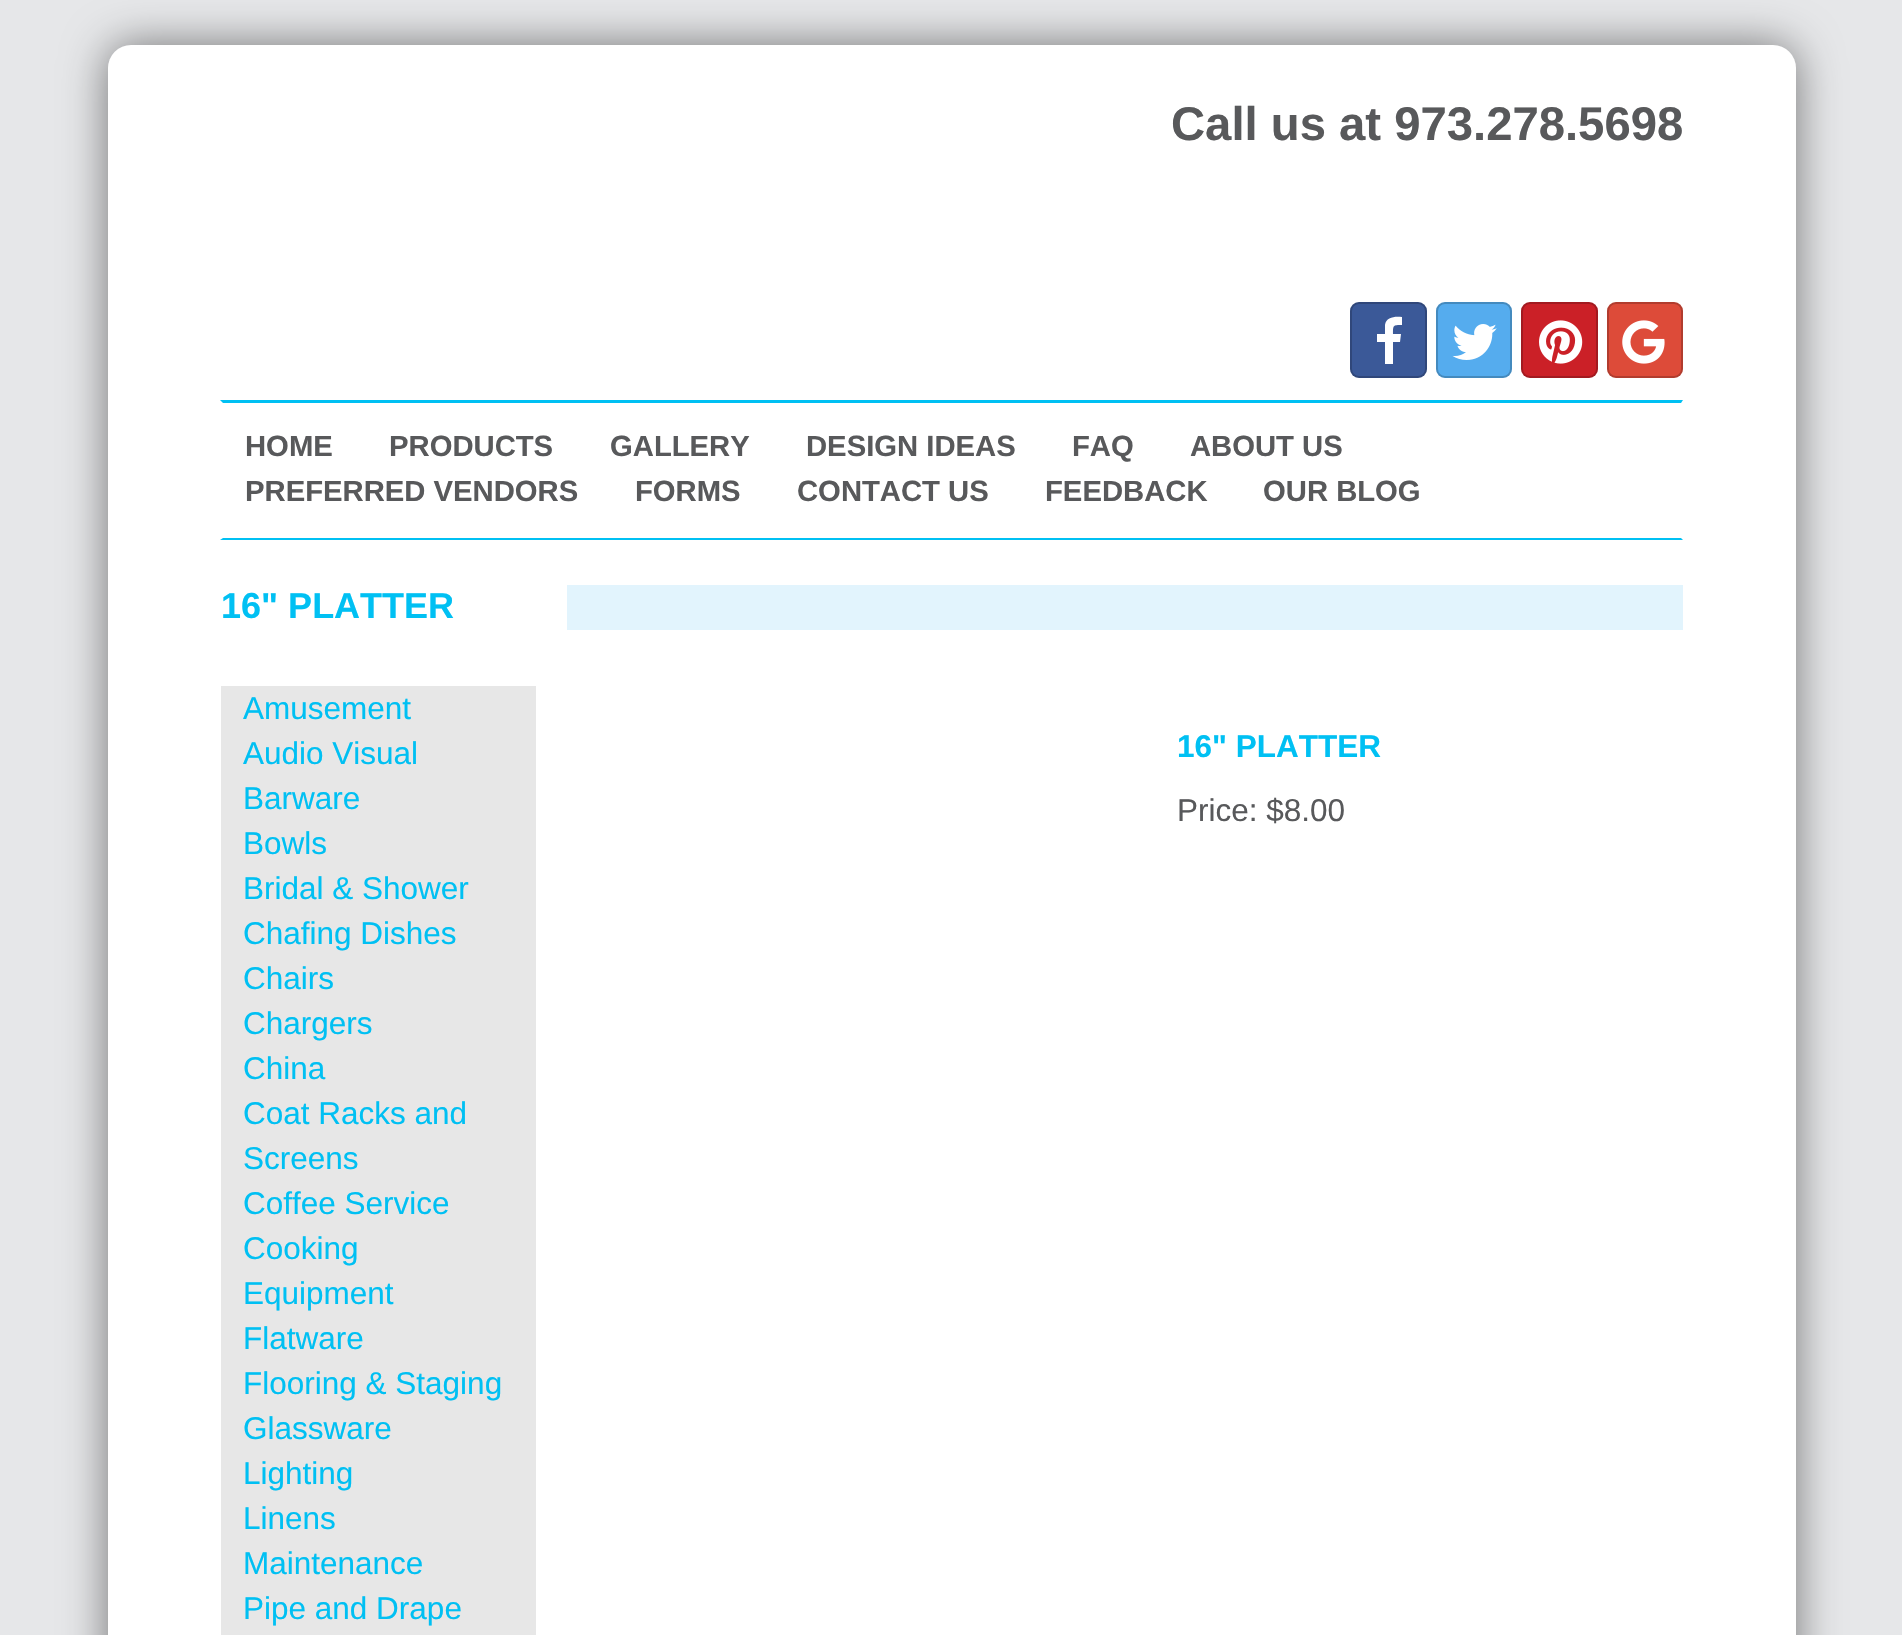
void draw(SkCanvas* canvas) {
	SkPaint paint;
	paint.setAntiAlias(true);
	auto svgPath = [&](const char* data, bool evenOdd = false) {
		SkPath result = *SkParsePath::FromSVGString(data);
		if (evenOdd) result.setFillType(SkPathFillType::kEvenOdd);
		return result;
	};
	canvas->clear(0xffe6e7e9);
	paint.setColor(0x80000000);
	paint.setMaskFilter(SkMaskFilter::MakeBlur(kNormal_SkBlurStyle, 22.5));
	canvas->drawRoundRect(SkRect::MakeXYWH(108, 45, 1688, 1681), 23, 23, paint);
	paint.setMaskFilter(nullptr);
	paint.setColor(0xffffffff);
	canvas->drawRoundRect(SkRect::MakeXYWH(108, 45, 1688, 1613), 23, 23, paint);
	SkFont f1(fontMgr->matchFamilyStyle("Liberation Sans", SkFontStyle::Bold()), 47.25);
	f1.setSubpixel(true);
	paint.setColor(0xff58595b);
	canvas->drawString("Call us at 973.278.5698", 1171, 140, f1, paint);
	paint.setColor(0xff3b5998);
	canvas->drawRoundRect(SkRect::MakeXYWH(1350, 302, 77, 76), 9, 9, paint);
	paint.setStroke(true);
	paint.setStrokeWidth(2);
	paint.setColor(0x33000000);
	canvas->drawRoundRect(SkRect::MakeXYWH(1351, 303, 75, 74), 8, 8, paint);
	paint.setStroke(false);
	paint.setColor(0xffffffff);
	canvas->drawPath(svgPath("M1402 317C1395 316 1386 317 1385 325V334H1377V342H1385V364H1393V342H1400L1401 334H1393C1393 325 1393 325 1402 325Z"), paint);
	paint.setColor(0xff55acee);
	canvas->drawRoundRect(SkRect::MakeXYWH(1436, 302, 76, 76), 9, 9, paint);
	paint.setStroke(true);
	paint.setColor(0x33000000);
	canvas->drawRoundRect(SkRect::MakeXYWH(1437, 303, 74, 74), 8, 8, paint);
	canvas->drawImageRect(SkImages::DeferredFromEncodedData(SkData::MakeFromFileName("img1.png")), SkRect::MakeXYWH(1452, 324, 45, 36), SkSamplingOptions());
	paint.setStroke(false);
	paint.setColor(0xffcb2027);
	canvas->drawRoundRect(SkRect::MakeXYWH(1521, 302, 77, 76), 9, 9, paint);
	paint.setStroke(true);
	paint.setColor(0x33000000);
	canvas->drawRoundRect(SkRect::MakeXYWH(1522, 303, 75, 74), 8, 8, paint);
	canvas->drawImageRect(SkImages::DeferredFromEncodedData(SkData::MakeFromFileName("img2.png")), SkRect::MakeXYWH(1539, 320, 44, 44), SkSamplingOptions());
	paint.setStroke(false);
	paint.setColor(0xffdd4b39);
	canvas->drawRoundRect(SkRect::MakeXYWH(1607, 302, 76, 76), 9, 9, paint);
	paint.setStroke(true);
	paint.setColor(0x33000000);
	canvas->drawRoundRect(SkRect::MakeXYWH(1608, 303, 74, 74), 8, 8, paint);
	canvas->drawImageRect(SkImages::DeferredFromEncodedData(SkData::MakeFromFileName("img3.png")), SkRect::MakeXYWH(1622, 320, 43, 44), SkSamplingOptions());
	paint.setStroke(false);
	paint.setColor(0xff00c0f3);
	canvas->drawPath(svgPath("M220 400H1683L1681 403H223Z"), paint);
	canvas->drawPath(svgPath("M1683 540H220L223 538H1681Z"), paint);
	SkFont f2(fontMgr->matchFamilyStyle("Liberation Sans", SkFontStyle::Bold()), 29.25);
	f2.setSubpixel(true);
	paint.setColor(0xff58595b);
	canvas->drawString("HOME", 245, 456, f2, paint);
	canvas->drawString("PRODUCTS", 389, 456, f2, paint);
	canvas->drawString("GALLERY", 610, 456, f2, paint);
	canvas->drawString("DESIGN IDEAS", 806, 456, f2, paint);
	canvas->drawString("FAQ", 1072, 456, f2, paint);
	canvas->drawString("ABOUT US", 1190, 456, f2, paint);
	canvas->drawString("PREFERRED VENDORS", 245, 501, f2, paint);
	canvas->drawString("FORMS", 635, 501, f2, paint);
	canvas->drawString("CONTACT US", 797, 501, f2, paint);
	canvas->drawString("FEEDBACK", 1045, 501, f2, paint);
	canvas->drawString("OUR BLOG", 1263, 501, f2, paint);
	paint.setColor(0xffe2f4fd);
	canvas->drawRect(SkRect::MakeXYWH(567, 585, 1116, 45), paint);
	SkFont f3(fontMgr->matchFamilyStyle("Liberation Sans", SkFontStyle::Bold()), 36);
	f3.setSubpixel(true);
	paint.setColor(0xff00c0f3);
	canvas->drawString("16\" PLATTER", 221, 618, f3, paint);
	paint.setColor(0xffe7e7e7);
	canvas->drawRect(SkRect::MakeXYWH(221, 686, 315, 949), paint);
	SkFont f4(fontMgr->matchFamilyStyle("Liberation Sans", SkFontStyle::Normal()), 31.5);
	f4.setSubpixel(true);
	paint.setColor(0xff00c0f3);
	canvas->drawString("Amusement", 243, 719, f4, paint);
	canvas->drawString("Audio Visual", 243, 764, f4, paint);
	canvas->drawString("Barware", 243, 809, f4, paint);
	canvas->drawString("Bowls", 243, 854, f4, paint);
	canvas->drawString("Bridal & Shower", 243, 899, f4, paint);
	canvas->drawString("Chafing Dishes", 243, 944, f4, paint);
	canvas->drawString("Chairs", 243, 989, f4, paint);
	canvas->drawString("Chargers", 243, 1034, f4, paint);
	canvas->drawString("China", 243, 1079, f4, paint);
	canvas->drawString("Coat Racks and", 243, 1124, f4, paint);
	canvas->drawString("Screens", 243, 1169, f4, paint);
	canvas->drawString("Coffee Service", 243, 1214, f4, paint);
	canvas->drawString("Cooking", 243, 1259, f4, paint);
	canvas->drawString("Equipment", 243, 1304, f4, paint);
	canvas->drawString("Flatware", 243, 1349, f4, paint);
	canvas->drawString("Flooring & Staging", 243, 1394, f4, paint);
	canvas->drawString("Glassware", 243, 1439, f4, paint);
	canvas->drawString("Lighting", 243, 1484, f4, paint);
	canvas->drawString("Linens", 243, 1529, f4, paint);
	canvas->drawString("Maintenance", 243, 1574, f4, paint);
	canvas->drawString("Pipe and Drape", 243, 1619, f4, paint);
	SkFont f5(fontMgr->matchFamilyStyle("Liberation Sans", SkFontStyle::Bold()), 31.5);
	f5.setSubpixel(true);
	canvas->drawString("16\" PLATTER", 1177, 757, f5, paint);
	paint.setColor(0xff58595b);
	canvas->drawString("Price: $8.00", 1177, 821, f4, paint);
}
